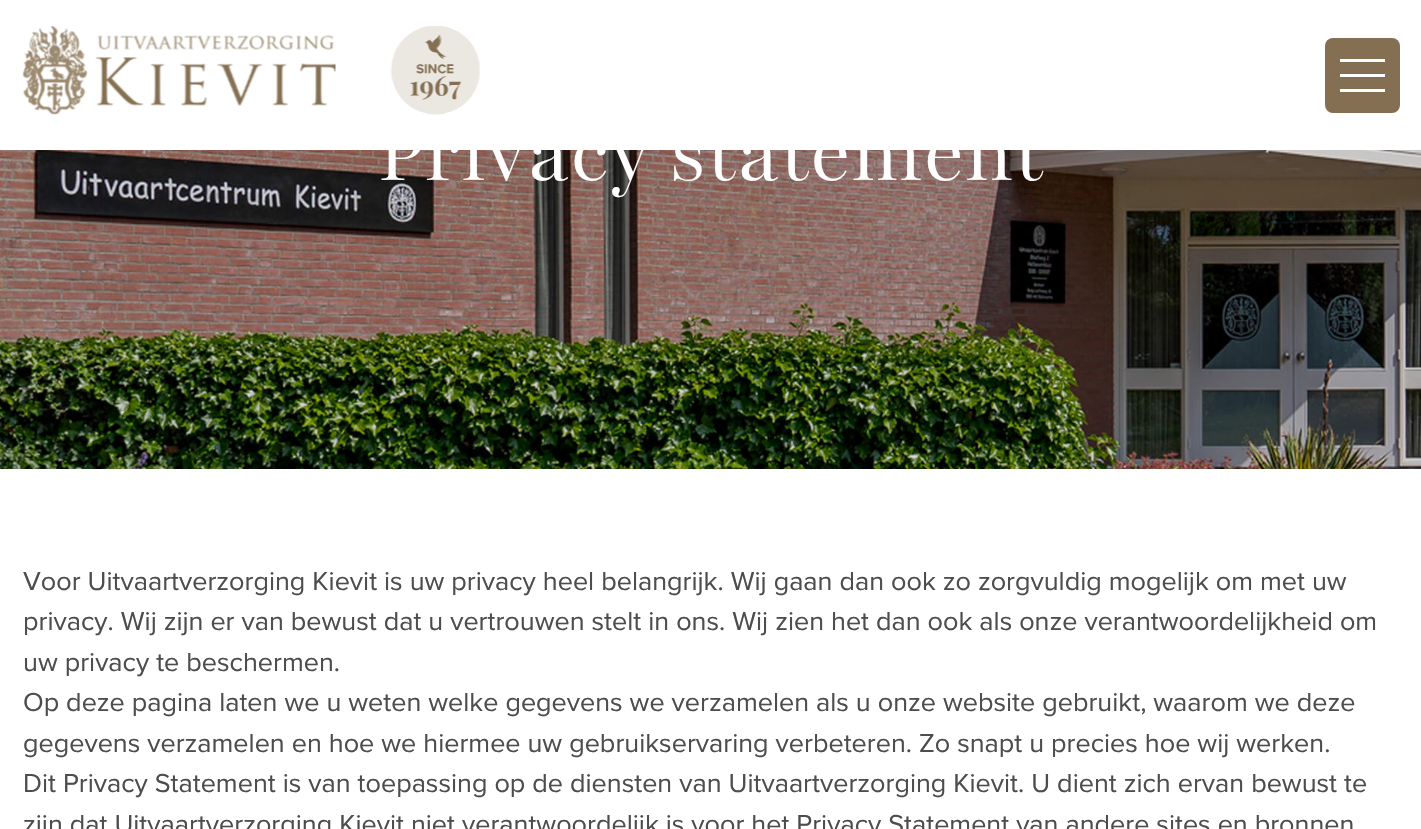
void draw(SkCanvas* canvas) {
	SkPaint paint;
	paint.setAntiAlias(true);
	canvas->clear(0xffffffff);
	canvas->drawImageRect(SkImages::DeferredFromEncodedData(SkData::MakeFromFileName("img1.png")), SkRect::MakeXYWH(22, 26, 458, 89), SkSamplingOptions());
	paint.setColor(0xff846f52);
	canvas->drawRoundRect(SkRect::MakeXYWH(1325, 38, 75, 75), 8, 8, paint);
	paint.setColor(0xffffffff);
	canvas->drawRect(SkRect::MakeXYWH(1340, 59, 45, 3), paint);
	canvas->drawRect(SkRect::MakeXYWH(1340, 74, 45, 3), paint);
	canvas->drawRect(SkRect::MakeXYWH(1340, 89, 45, 3), paint);
	canvas->drawImageRect(SkImages::DeferredFromEncodedData(SkData::MakeFromFileName("img2.png")), SkRect::MakeXYWH(0, 150, 1421, 319), SkSamplingOptions());
	SkFont f1(fontMgr->matchFamilyStyle("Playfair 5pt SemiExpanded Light", SkFontStyle(300, SkFontStyle::kNormal_Width, SkFontStyle::kUpright_Slant)), 90);
	f1.setSubpixel(true);
	canvas->drawString("Privacy statement", 378, 180, f1, paint);
	SkFont f2(fontMgr->matchFamilyStyle("Proxima Nova", SkFontStyle::Normal()), 27);
	f2.setSubpixel(true);
	paint.setColor(0xff4d4d4d);
	canvas->drawString("Voor Uitvaartverzorging Kievit is uw privacy heel belangrijk. Wij gaan dan ook zo zorgvuldig mogelijk om met uw", 23, 590, f2, paint);
	canvas->drawString("privacy. Wij zijn er van bewust dat u vertrouwen stelt in ons. Wij zien het dan ook als onze verantwoordelijkheid om", 23, 630, f2, paint);
	canvas->drawString("uw privacy te beschermen.", 23, 671, f2, paint);
	canvas->drawString("Op deze pagina laten we u weten welke gegevens we verzamelen als u onze website gebruikt, waarom we deze", 23, 711, f2, paint);
	canvas->drawString("gegevens verzamelen en hoe we hiermee uw gebruikservaring verbeteren. Zo snapt u precies hoe wij werken.", 23, 752, f2, paint);
	canvas->drawString("Dit Privacy Statement is van toepassing op de diensten van Uitvaartverzorging Kievit. U dient zich ervan bewust te", 23, 792, f2, paint);
	canvas->drawString("zijn dat Uitvaartverzorging Kievit niet verantwoordelijk is voor het Privacy Statement van andere sites en bronnen", 23, 833, f2, paint);
}
